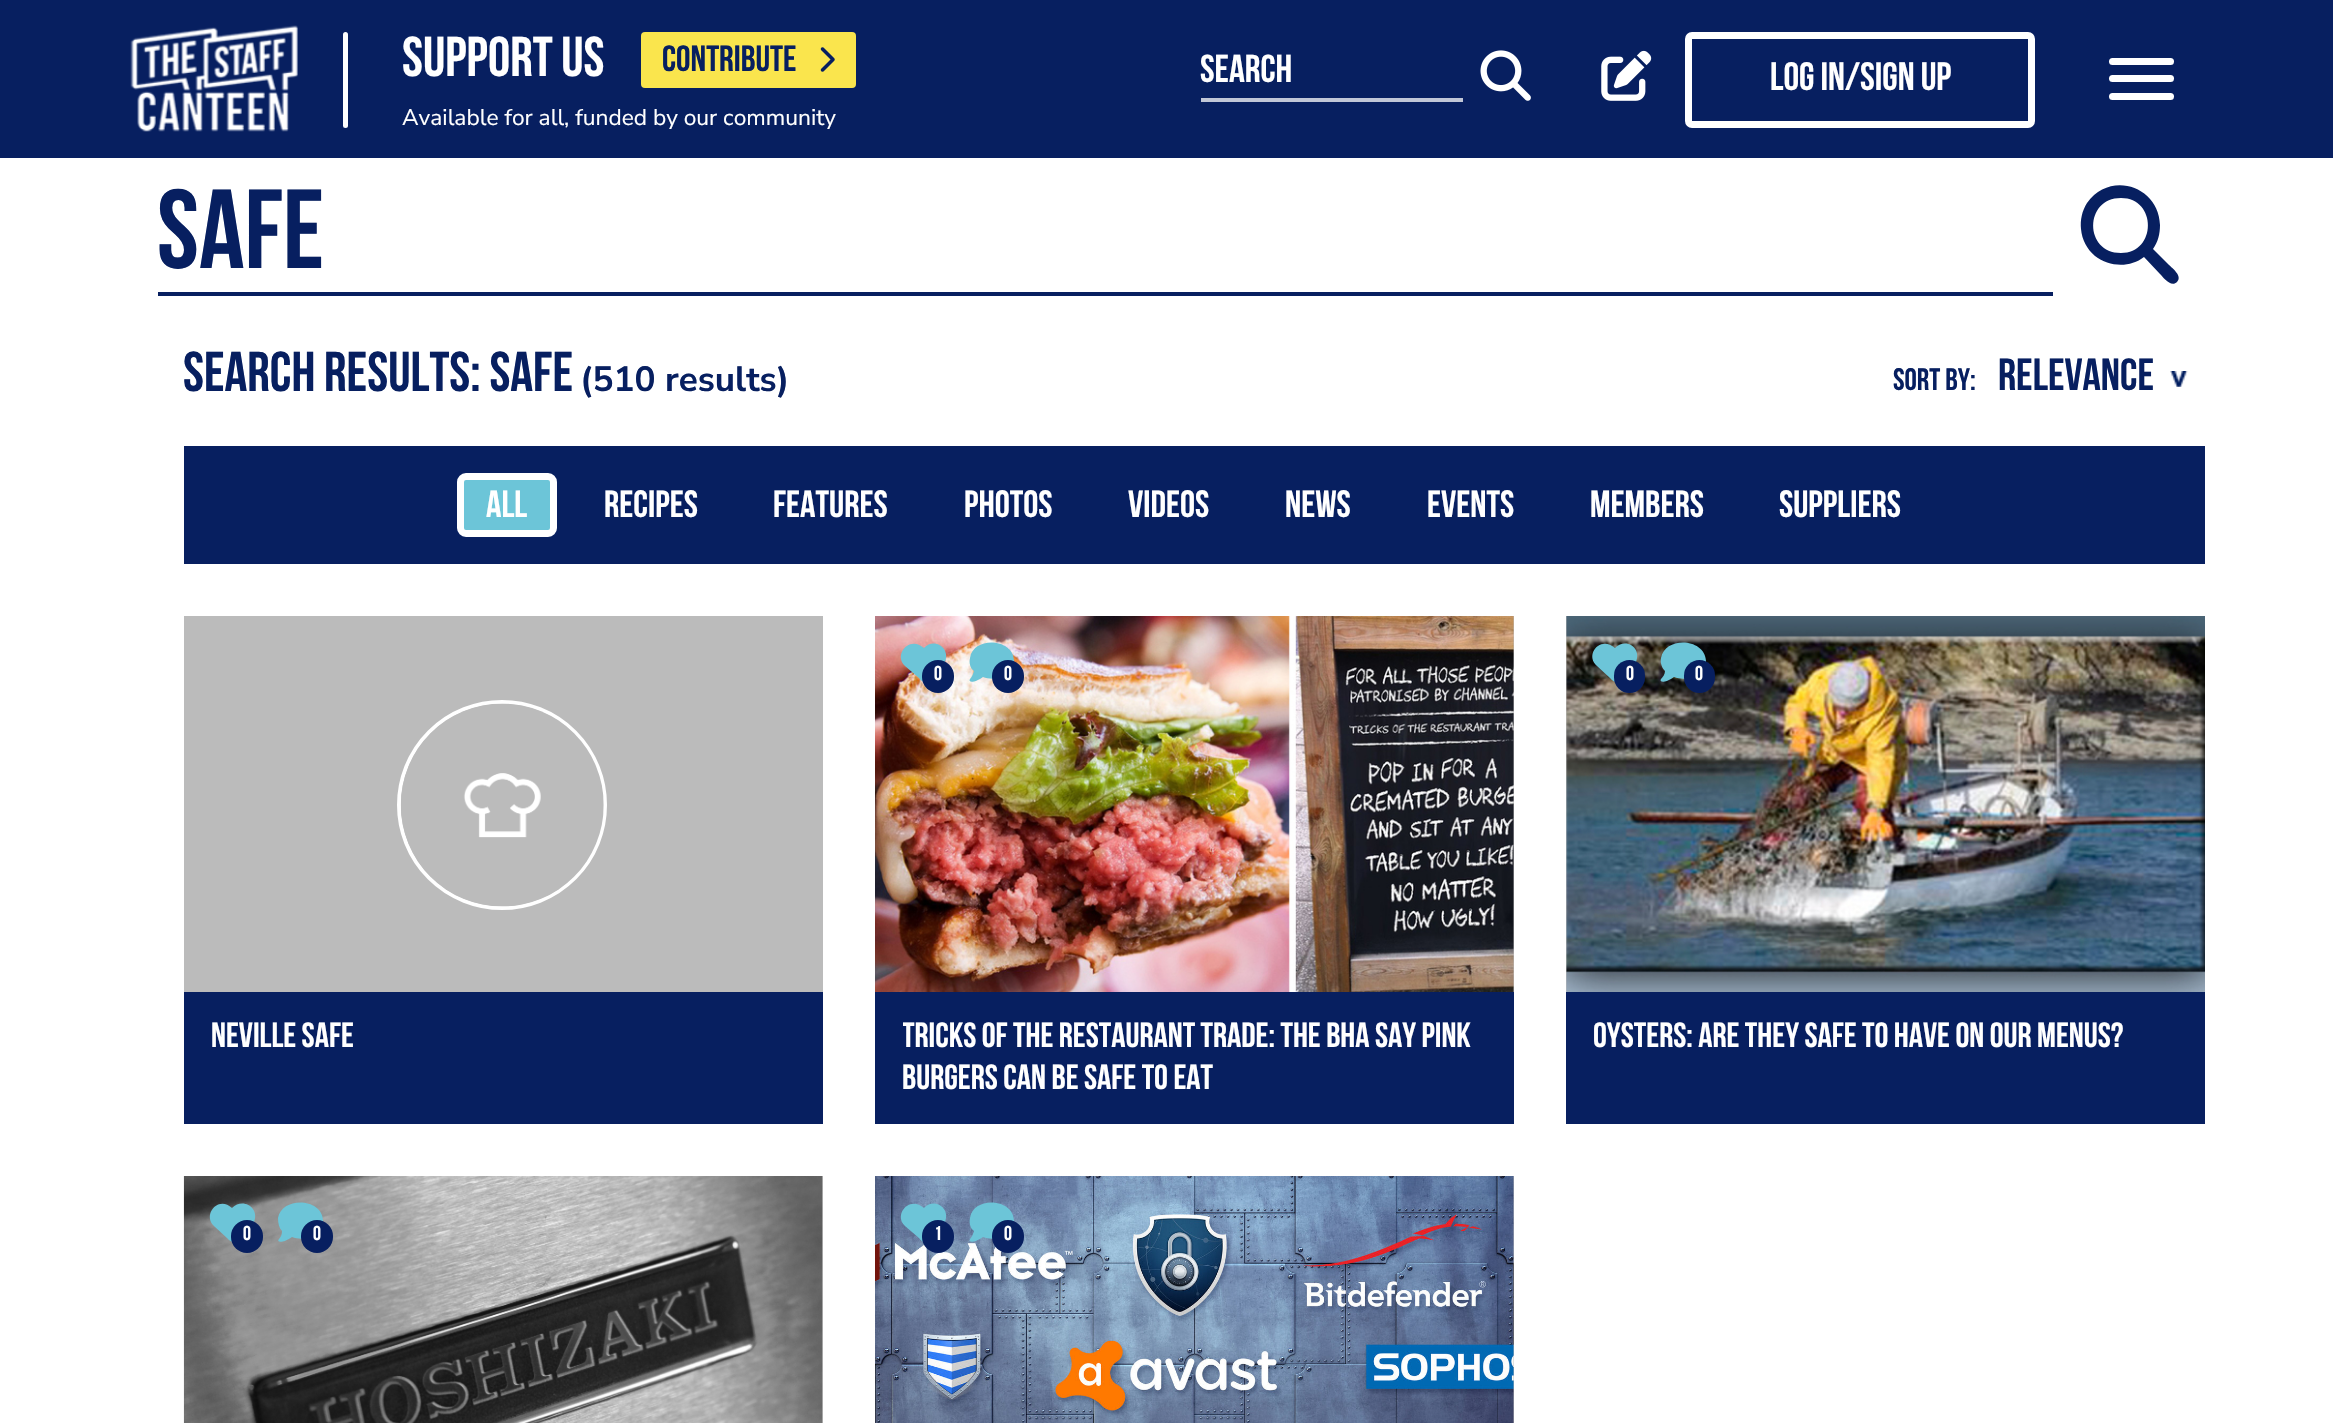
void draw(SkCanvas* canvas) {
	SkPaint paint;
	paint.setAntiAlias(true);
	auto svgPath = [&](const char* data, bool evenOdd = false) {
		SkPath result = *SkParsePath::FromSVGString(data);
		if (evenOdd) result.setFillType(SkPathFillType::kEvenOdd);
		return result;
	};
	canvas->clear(0xffffffff);
	paint.setColor(0xff071f60);
	canvas->drawRect(SkRect::MakeXYWH(0, 0, 2333, 158), paint);
	canvas->drawImageRect(SkImages::DeferredFromEncodedData(SkData::MakeFromFileName("img1.png")), SkRect::MakeXYWH(130, 25, 168, 107), SkSamplingOptions());
	paint.setColor(0xffffffff);
	canvas->drawRoundRect(SkRect::MakeXYWH(343, 32, 5, 96), 2.5, 2.5, paint);
	SkFont f1(fontMgr->matchFamilyStyle("Bebas Neue", SkFontStyle::Bold()), 56);
	f1.setSubpixel(true);
	canvas->drawString("SUPPORT US", 402, 76, f1, paint);
	paint.setColor(0xfffae54d);
	canvas->drawRoundRect(SkRect::MakeXYWH(641, 32, 215, 56), 4, 4, paint);
	SkFont f2(fontMgr->matchFamilyStyle("Bebas Neue", SkFontStyle::Bold()), 36.5);
	f2.setSubpixel(true);
	paint.setColor(0xff071f60);
	canvas->drawString("CONTRIBUTE", 662, 71, f2, paint);
	canvas->drawImageRect(SkImages::DeferredFromEncodedData(SkData::MakeFromFileName("img2.png")), SkRect::MakeXYWH(820, 47, 15, 25), SkSamplingOptions());
	SkFont f3(fontMgr->matchFamilyStyle("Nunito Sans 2", SkFontStyle(200, SkFontStyle::kNormal_Width, SkFontStyle::kUpright_Slant)), 22.75);
	f3.setSubpixel(true);
	paint.setColor(0xffffffff);
	canvas->drawString("Available for all, funded by our community", 402, 125, f3, paint);
	paint.setColor(0xffc1c7d7);
	canvas->drawRect(SkRect::MakeXYWH(1201, 98, 262, 4), paint);
	SkFont f4(fontMgr->matchFamilyStyle("Bebas Neue", SkFontStyle::Bold()), 39);
	f4.setSubpixel(true);
	paint.setColor(0xffffffff);
	canvas->drawString("search", 1200, 82, f4, paint);
	canvas->drawImageRect(SkImages::DeferredFromEncodedData(SkData::MakeFromFileName("img3.png")), SkRect::MakeXYWH(1480, 50, 51, 51), SkSamplingOptions());
	canvas->drawImageRect(SkImages::DeferredFromEncodedData(SkData::MakeFromFileName("img4.png")), SkRect::MakeXYWH(1601, 50, 51, 51), SkSamplingOptions());
	paint.setStroke(true);
	paint.setStrokeWidth(7);
	canvas->drawRoundRect(SkRect::MakeXYWH(1688.5, 35.5, 343, 89), 3.5, 3.5, paint);
	SkFont f5(fontMgr->matchFamilyStyle("Bebas Neue", SkFontStyle::Bold()), 39.5);
	f5.setSubpixel(true);
	paint.setStroke(false);
	canvas->drawString("Log in/Sign up", 1770, 90, f5, paint);
	canvas->drawRoundRect(SkRect::MakeXYWH(2109, 58, 65, 7), 3.5, 3.5, paint);
	canvas->drawRoundRect(SkRect::MakeXYWH(2109, 75, 65, 7), 3.5, 3.5, paint);
	canvas->drawRoundRect(SkRect::MakeXYWH(2109, 93, 65, 7), 3.5, 3.5, paint);
	paint.setColor(0xff071f60);
	canvas->drawRect(SkRect::MakeXYWH(158, 292, 1895, 4), paint);
	SkFont f6(fontMgr->matchFamilyStyle("Bebas Neue", SkFontStyle::Bold()), 112);
	f6.setSubpixel(true);
	canvas->drawString("Safe", 157, 268, f6, paint);
	canvas->drawPath(svgPath("M2160 225C2160 234 2158 242 2153 249L2169 265C2172 268 2183 276 2177 282C2171 288 2163 277 2160 274L2144 257C2130 268 2109 267 2095 256C2087 249 2082 240 2081 229C2080 220 2082 211 2087 203C2110 170 2159 186 2160 225ZM2121 253C2157 253 2157 198 2121 198C2084 198 2084 253 2121 253Z"), paint);
	canvas->drawString("Search results: Safe", 183, 391, f1, paint);
	SkFont f7(fontMgr->matchFamilyStyle("Nunito Sans", SkFontStyle(200, SkFontStyle::kNormal_Width, SkFontStyle::kUpright_Slant)), 35);
	f7.setSubpixel(true);
	canvas->drawString("(510 results)", 580, 391, f7, paint);
	SkFont f8(fontMgr->matchFamilyStyle("Bebas Neue", SkFontStyle::Bold()), 31);
	f8.setSubpixel(true);
	canvas->drawString("SORT BY:", 1893, 390, f8, paint);
	canvas->drawImageRect(SkImages::DeferredFromEncodedData(SkData::MakeFromFileName("img5.png")), SkRect::MakeXYWH(2170, 371, 18, 16), SkSamplingOptions());
	SkFont f9(fontMgr->matchFamilyStyle("Bebas Neue", SkFontStyle::Bold()), 45);
	f9.setSubpixel(true);
	canvas->drawString("relevance", 1998, 390, f9, paint);
	canvas->drawRect(SkRect::MakeXYWH(184, 446, 2021, 118), paint);
	paint.setColor(0xff6cc5d8);
	canvas->drawRoundRect(SkRect::MakeXYWH(460.5, 476.5, 93, 57), 5.5, 5.5, paint);
	paint.setStroke(true);
	paint.setColor(0xffffffff);
	canvas->drawRoundRect(SkRect::MakeXYWH(460.5, 476.5, 93, 57), 5.5, 5.5, paint);
	SkFont f10(fontMgr->matchFamilyStyle("Bebas Neue", SkFontStyle::Bold()), 38);
	f10.setSubpixel(true);
	paint.setStroke(false);
	canvas->drawString("ALL", 486, 517, f10, paint);
	canvas->drawString("RECIPES", 604, 517, f10, paint);
	canvas->drawString("FEATURES", 773, 517, f10, paint);
	canvas->drawString("PHOTOS", 964, 517, f10, paint);
	canvas->drawString("VIDEOS", 1128, 517, f10, paint);
	canvas->drawString("NEWS", 1285, 517, f10, paint);
	canvas->drawString("EVENTS", 1427, 517, f10, paint);
	canvas->drawString("MEMBERS", 1590, 517, f10, paint);
	canvas->drawString("SUPPLIERS", 1779, 517, f10, paint);
	paint.setColor(0xffbbbbbb);
	canvas->drawRect(SkRect::MakeXYWH(184, 616, 639, 376), paint);
	paint.setStroke(true);
	paint.setStrokeWidth(4);
	paint.setColor(0xffffffff);
	canvas->drawCircle(502, 805, 103, paint);
	canvas->drawImageRect(SkImages::DeferredFromEncodedData(SkData::MakeFromFileName("img6.png")), SkRect::MakeXYWH(400, 703, 204, 204), SkSamplingOptions());
	paint.setStroke(false);
	paint.setColor(0xff071f60);
	canvas->drawRect(SkRect::MakeXYWH(184, 992, 639, 132), paint);
	SkFont f11(fontMgr->matchFamilyStyle("Bebas Neue", SkFontStyle::Bold()), 35);
	f11.setSubpixel(true);
	paint.setColor(0xffffffff);
	canvas->drawString("Neville safe", 211, 1047, f11, paint);
	paint.setColor(0xffbbbbbb);
	canvas->drawRect(SkRect::MakeXYWH(1513, 616, 1, 376), paint);
	canvas->drawImageRect(SkImages::DeferredFromEncodedData(SkData::MakeFromFileName("img7.png")), SkRect::MakeXYWH(875, 616, 639, 376), SkSamplingOptions());
	paint.setColor(0xff6cc5d8);
	canvas->drawPath(svgPath("M905 666L921 681L905 666L919 678C923 683 924 683 929 678L934 673C938 670 943 667 945 662C951 648 934 637 924 648C910 635 893 654 905 666Z"), paint);
	paint.setColor(0xff071f60);
	canvas->drawRoundRect(SkRect::MakeXYWH(922, 660, 32, 33), 16, 16, paint);
	SkFont f12(fontMgr->matchFamilyStyle("Bebas Neue", SkFontStyle::Bold()), 20);
	f12.setSubpixel(true);
	paint.setColor(0xffffffff);
	canvas->drawString("0", 934, 680, f12, paint);
	paint.setColor(0xff6cc5d8);
	canvas->drawPath(svgPath("M1014 661C1014 676 995 682 983 677C973 684 968 682 970 679C972 677 973 674 974 671C970 668 969 663 970 658C973 636 1014 638 1014 661Z"), paint);
	paint.setColor(0xff071f60);
	canvas->drawRoundRect(SkRect::MakeXYWH(992, 660, 32, 33), 16, 16, paint);
	paint.setColor(0xffffffff);
	canvas->drawString("0", 1004, 680, f12, paint);
	paint.setColor(0xff071f60);
	canvas->drawRect(SkRect::MakeXYWH(875, 992, 639, 132), paint);
	canvas->save();
	canvas->clipRect(SkRect::MakeXYWH(903, 1017, 583, 84));
	paint.setColor(0xffffffff);
	canvas->drawString("Tricks of the Restaurant Trade: The BHA say pink", 902, 1047, f11, paint);
	canvas->restore();
	canvas->drawString("burgers can be safe to eat", 902, 1089, f11, paint);
	paint.setColor(0xffbbbbbb);
	canvas->drawRect(SkRect::MakeXYWH(1566, 616, 1, 376), paint);
	canvas->drawImageRect(SkImages::DeferredFromEncodedData(SkData::MakeFromFileName("img8.png")), SkRect::MakeXYWH(1566, 616, 639, 376), SkSamplingOptions());
	paint.setColor(0xff6cc5d8);
	canvas->drawPath(svgPath("M1597 666L1612 681L1597 666L1610 678C1615 683 1615 683 1620 678L1625 673C1629 670 1634 667 1636 662C1642 648 1626 637 1615 648C1601 635 1584 654 1597 666Z"), paint);
	paint.setColor(0xff071f60);
	canvas->drawRoundRect(SkRect::MakeXYWH(1614, 660, 31, 33), 15.5, 15.5, paint);
	paint.setColor(0xffffffff);
	canvas->drawString("0", 1626, 680, f12, paint);
	paint.setColor(0xff6cc5d8);
	canvas->drawPath(svgPath("M1706 661C1705 676 1686 682 1674 677C1664 684 1659 682 1661 679C1663 677 1665 674 1665 671C1662 668 1660 663 1661 658C1665 636 1705 638 1706 661Z"), paint);
	paint.setColor(0xff071f60);
	canvas->drawRoundRect(SkRect::MakeXYWH(1684, 660, 31, 33), 15.5, 15.5, paint);
	paint.setColor(0xffffffff);
	canvas->drawString("0", 1695, 680, f12, paint);
	paint.setColor(0xff071f60);
	canvas->drawRect(SkRect::MakeXYWH(1566, 992, 639, 132), paint);
	paint.setColor(0xffffffff);
	canvas->drawString("Oysters: are they safe to have on our menus?", 1593, 1047, f11, paint);
	paint.setColor(0xffbbbbbb);
	canvas->drawRect(SkRect::MakeXYWH(822, 1176, 1, 247), paint);
	canvas->drawImageRect(SkImages::DeferredFromEncodedData(SkData::MakeFromFileName("img9.png")), SkRect::MakeXYWH(183, 1176, 640, 247), SkSamplingOptions());
	paint.setColor(0xff6cc5d8);
	canvas->drawPath(svgPath("M214 1226L230 1241L214 1226L227 1238C232 1243 233 1243 237 1238L243 1233C246 1230 252 1227 254 1222C260 1208 243 1197 232 1208C219 1195 202 1214 214 1226Z"), paint);
	paint.setColor(0xff071f60);
	canvas->drawRoundRect(SkRect::MakeXYWH(231, 1220, 32, 33), 16, 16, paint);
	paint.setColor(0xffffffff);
	canvas->drawString("0", 243, 1240, f12, paint);
	paint.setColor(0xff6cc5d8);
	canvas->drawPath(svgPath("M323 1221C323 1236 304 1242 292 1237C282 1244 276 1242 279 1239C281 1237 282 1234 282 1231C279 1228 278 1223 278 1218C282 1196 323 1198 323 1221Z"), paint);
	paint.setColor(0xff071f60);
	canvas->drawRoundRect(SkRect::MakeXYWH(301, 1220, 32, 33), 16, 16, paint);
	paint.setColor(0xffffffff);
	canvas->drawString("0", 313, 1240, f12, paint);
	paint.setColor(0xffbbbbbb);
	canvas->drawRect(SkRect::MakeXYWH(1513, 1176, 1, 247), paint);
	canvas->drawImageRect(SkImages::DeferredFromEncodedData(SkData::MakeFromFileName("img10.png")), SkRect::MakeXYWH(875, 1176, 639, 247), SkSamplingOptions());
	paint.setColor(0xff6cc5d8);
	canvas->drawPath(svgPath("M905 1226L921 1241L905 1226L919 1238C923 1243 924 1243 929 1238L934 1233C938 1230 943 1227 945 1222C951 1208 934 1197 924 1208C910 1195 893 1214 905 1226Z"), paint);
	paint.setColor(0xff071f60);
	canvas->drawRoundRect(SkRect::MakeXYWH(922, 1220, 32, 33), 16, 16, paint);
	paint.setColor(0xffffffff);
	canvas->drawString("1", 934, 1240, f12, paint);
	paint.setColor(0xff6cc5d8);
	canvas->drawPath(svgPath("M1014 1221C1014 1236 995 1242 983 1237C973 1244 968 1242 970 1239C972 1237 973 1234 974 1231C970 1228 969 1223 970 1218C973 1196 1014 1198 1014 1221Z"), paint);
	paint.setColor(0xff071f60);
	canvas->drawRoundRect(SkRect::MakeXYWH(992, 1220, 32, 33), 16, 16, paint);
	paint.setColor(0xffffffff);
	canvas->drawString("0", 1004, 1240, f12, paint);
}
